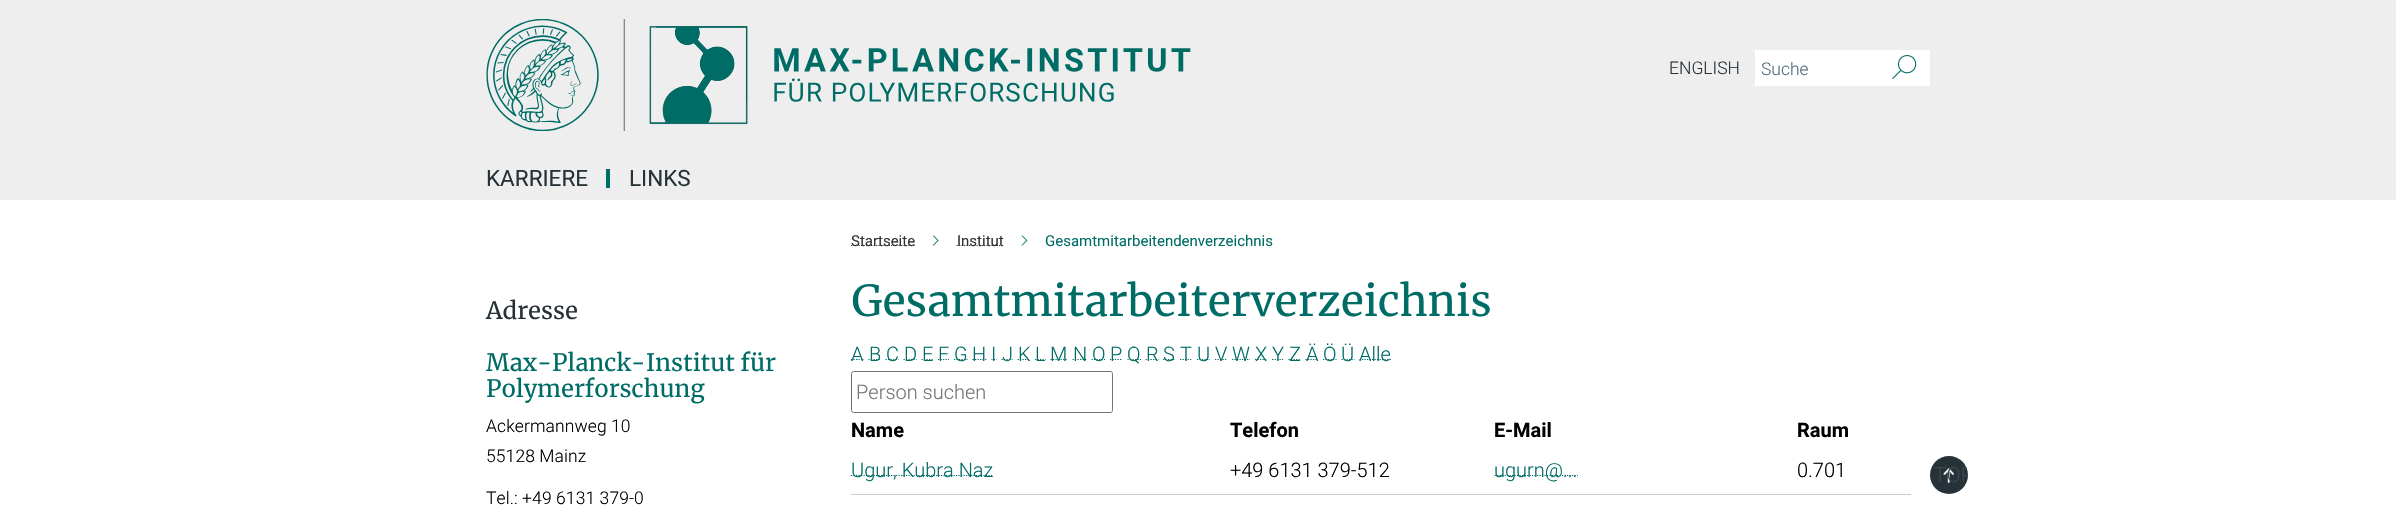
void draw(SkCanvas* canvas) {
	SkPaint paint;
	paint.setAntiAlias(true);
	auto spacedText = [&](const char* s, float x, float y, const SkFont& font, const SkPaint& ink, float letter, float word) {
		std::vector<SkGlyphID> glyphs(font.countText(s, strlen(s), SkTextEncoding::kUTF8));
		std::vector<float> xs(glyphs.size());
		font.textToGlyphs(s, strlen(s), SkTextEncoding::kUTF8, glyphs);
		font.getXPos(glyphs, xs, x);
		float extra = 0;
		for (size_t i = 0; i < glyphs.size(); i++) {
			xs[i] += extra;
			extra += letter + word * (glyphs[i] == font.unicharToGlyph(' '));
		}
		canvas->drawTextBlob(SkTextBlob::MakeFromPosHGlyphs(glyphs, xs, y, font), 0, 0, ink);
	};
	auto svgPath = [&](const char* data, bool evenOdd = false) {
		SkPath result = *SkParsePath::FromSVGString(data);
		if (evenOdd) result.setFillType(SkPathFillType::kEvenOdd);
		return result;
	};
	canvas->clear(0xffffffff);
	paint.setColor(0xffeeeeee);
	canvas->drawRect(SkRect::MakeXYWH(0, 0, 2396, 200), paint);
	canvas->drawImageRect(SkImages::DeferredFromEncodedData(SkData::MakeFromFileName("img1.png")), SkRect::MakeXYWH(486, 19, 705, 112), SkSamplingOptions());
	SkFont f1(fontMgr->matchFamilyStyle("Roboto", SkFontStyle(300, SkFontStyle::kNormal_Width, SkFontStyle::kUpright_Slant)), 17.5);
	f1.setSubpixel(true);
	paint.setColor(0xff263238);
	canvas->drawString("ENGLISH", 1669, 74, f1, paint);
	paint.setColor(0xffffffff);
	canvas->drawRect(SkRect::MakeXYWH(1755, 50, 175, 36), paint);
	paint.setColor(0xff546e7a);
	canvas->drawString("Suche", 1761, 75, f1, paint);
	canvas->drawImageRect(SkImages::DeferredFromEncodedData(SkData::MakeFromFileName("img2.png")), SkRect::MakeXYWH(1892, 55, 25, 25), SkSamplingOptions());
	paint.setColor(0xff006c66);
	canvas->drawRect(SkRect::MakeXYWH(606, 169, 4, 19), paint);
	SkFont f2(fontMgr->matchFamilyStyle("Roboto", SkFontStyle::Normal()), 22.5);
	f2.setSubpixel(true);
	paint.setColor(0xff263238);
	canvas->drawString("KARRIERE", 486, 186, f2, paint);
	canvas->drawString("LINKS", 629, 186, f2, paint);
	SkFont f3(fontMgr->matchFamilyStyle("Merriweather", SkFontStyle::Normal()), 23.75);
	f3.setSubpixel(true);
	canvas->drawString("Adresse", 486, 319, f3, paint);
	paint.setColor(0xff006c66);
	canvas->drawString("Max-Planck-Institut für", 486, 371, f3, paint);
	canvas->drawString("Polymerforschung", 486, 397, f3, paint);
	paint.setColor(0xff000000);
	spacedText("Ackermannweg 10", 486, 432, f1, paint, 0.1, 0);
	spacedText("55128 Mainz", 486, 462, f1, paint, 0.1, 0);
	spacedText("Tel.: +49 6131 379-0", 486, 504, f1, paint, 0.1, 0);
	paint.setStroke(true);
	paint.setStrokeWidth(1.2);
	paint.setColor(0xff333333);
	paint.setPathEffect(SkDashPathEffect::Make({{1.25f, 1.25f}}, 0));
	canvas->drawPath(svgPath("M851 245.5H915.5"), paint);
	paint.setPathEffect(nullptr);
	SkFont f4(fontMgr->matchFamilyStyle("Roboto", SkFontStyle::Normal()), 15);
	f4.setSubpixel(true);
	paint.setStroke(false);
	canvas->drawString("Startseite", 851, 246, f4, paint);
	canvas->drawImageRect(SkImages::DeferredFromEncodedData(SkData::MakeFromFileName("img3.png")), SkRect::MakeXYWH(933, 235, 6, 11), SkSamplingOptions());
	paint.setStroke(true);
	paint.setPathEffect(SkDashPathEffect::Make({{1.25f, 1.25f}}, 0));
	canvas->drawPath(svgPath("M956.5 245.5H1003.5"), paint);
	paint.setPathEffect(nullptr);
	paint.setStroke(false);
	canvas->drawString("Institut", 957, 246, f4, paint);
	canvas->drawImageRect(SkImages::DeferredFromEncodedData(SkData::MakeFromFileName("img4.png")), SkRect::MakeXYWH(1021, 235, 7, 11), SkSamplingOptions());
	paint.setColor(0xff006c66);
	canvas->drawString("Gesamtmitarbeitendenverzeichnis", 1045, 246, f4, paint);
	SkFont f5(fontMgr->matchFamilyStyle("Merriweather", SkFontStyle::Normal()), 42.5);
	f5.setSubpixel(true);
	canvas->drawString("Gesamtmitarbeiterverzeichnis", 851, 316, f5, paint);
	paint.setStroke(true);
	paint.setPathEffect(SkDashPathEffect::Make({{1.25f, 1.25f}}, 0));
	canvas->drawPath(svgPath("M851 359.5H864"), paint);
	paint.setPathEffect(nullptr);
	SkFont f6(fontMgr->matchFamilyStyle("Roboto", SkFontStyle(300, SkFontStyle::kNormal_Width, SkFontStyle::kUpright_Slant)), 20);
	f6.setSubpixel(true);
	paint.setStroke(false);
	canvas->drawString("A", 851, 361, f6, paint);
	paint.setStroke(true);
	paint.setPathEffect(SkDashPathEffect::Make({{1.25f, 1.25f}}, 0));
	canvas->drawPath(svgPath("M868.5 359.5H881"), paint);
	paint.setPathEffect(nullptr);
	paint.setStroke(false);
	canvas->drawString("B", 869, 361, f6, paint);
	paint.setStroke(true);
	paint.setPathEffect(SkDashPathEffect::Make({{1.25f, 1.25f}}, 0));
	canvas->drawPath(svgPath("M885.5 359.5H898.5"), paint);
	paint.setPathEffect(nullptr);
	paint.setStroke(false);
	canvas->drawString("C", 886, 361, f6, paint);
	paint.setStroke(true);
	paint.setPathEffect(SkDashPathEffect::Make({{1.25f, 1.25f}}, 0));
	canvas->drawPath(svgPath("M903.5 359.5H916.5"), paint);
	paint.setPathEffect(nullptr);
	paint.setStroke(false);
	canvas->drawString("D", 904, 361, f6, paint);
	paint.setStroke(true);
	paint.setPathEffect(SkDashPathEffect::Make({{1.25f, 1.25f}}, 0));
	canvas->drawPath(svgPath("M921.5 359.5H933"), paint);
	paint.setPathEffect(nullptr);
	paint.setStroke(false);
	canvas->drawString("E", 922, 361, f6, paint);
	paint.setStroke(true);
	paint.setPathEffect(SkDashPathEffect::Make({{1.25f, 1.25f}}, 0));
	canvas->drawPath(svgPath("M938 359.5H949"), paint);
	paint.setPathEffect(nullptr);
	paint.setStroke(false);
	canvas->drawString("F", 938, 361, f6, paint);
	paint.setStroke(true);
	paint.setPathEffect(SkDashPathEffect::Make({{1.25f, 1.25f}}, 0));
	canvas->drawPath(svgPath("M954 359.5H967.5"), paint);
	paint.setPathEffect(nullptr);
	paint.setStroke(false);
	canvas->drawString("G", 954, 361, f6, paint);
	paint.setStroke(true);
	paint.setPathEffect(SkDashPathEffect::Make({{1.25f, 1.25f}}, 0));
	canvas->drawPath(svgPath("M972.5 359.5H986.5"), paint);
	paint.setPathEffect(nullptr);
	paint.setStroke(false);
	canvas->drawString("H", 972, 361, f6, paint);
	paint.setStroke(true);
	canvas->drawPath(svgPath("M991.5 359.5H992.5M994 359.5H995M996.5 359.5H997"), paint);
	paint.setStroke(false);
	canvas->drawString("I", 991, 361, f6, paint);
	paint.setStroke(true);
	paint.setPathEffect(SkDashPathEffect::Make({{1.25f, 1.25f}}, 0));
	canvas->drawPath(svgPath("M1001.5 359.5H1012.5"), paint);
	paint.setPathEffect(nullptr);
	paint.setStroke(false);
	canvas->drawString("J", 1002, 361, f6, paint);
	paint.setStroke(true);
	paint.setPathEffect(SkDashPathEffect::Make({{1.25f, 1.25f}}, 0));
	canvas->drawPath(svgPath("M1017.5 359.5H1030"), paint);
	paint.setPathEffect(nullptr);
	paint.setStroke(false);
	canvas->drawString("K", 1018, 361, f6, paint);
	paint.setStroke(true);
	paint.setPathEffect(SkDashPathEffect::Make({{1.25f, 1.25f}}, 0));
	canvas->drawPath(svgPath("M1035 359.5H1045.5"), paint);
	paint.setPathEffect(nullptr);
	paint.setStroke(false);
	canvas->drawString("L", 1035, 361, f6, paint);
	paint.setStroke(true);
	paint.setPathEffect(SkDashPathEffect::Make({{1.25f, 1.25f}}, 0));
	canvas->drawPath(svgPath("M1050.5 359.5H1068"), paint);
	paint.setPathEffect(nullptr);
	paint.setStroke(false);
	canvas->drawString("M", 1050, 361, f6, paint);
	paint.setStroke(true);
	paint.setPathEffect(SkDashPathEffect::Make({{1.25f, 1.25f}}, 0));
	canvas->drawPath(svgPath("M1072.5 359.5H1087"), paint);
	paint.setPathEffect(nullptr);
	paint.setStroke(false);
	canvas->drawString("N", 1073, 361, f6, paint);
	paint.setStroke(true);
	paint.setPathEffect(SkDashPathEffect::Make({{1.25f, 1.25f}}, 0));
	canvas->drawPath(svgPath("M1091.5 359.5H1105"), paint);
	paint.setPathEffect(nullptr);
	paint.setStroke(false);
	canvas->drawString("O", 1092, 361, f6, paint);
	paint.setStroke(true);
	paint.setPathEffect(SkDashPathEffect::Make({{1.25f, 1.25f}}, 0));
	canvas->drawPath(svgPath("M1110 359.5H1122.5"), paint);
	paint.setPathEffect(nullptr);
	paint.setStroke(false);
	canvas->drawString("P", 1110, 361, f6, paint);
	paint.setStroke(true);
	paint.setPathEffect(SkDashPathEffect::Make({{1.25f, 1.25f}}, 0));
	canvas->drawPath(svgPath("M1127.5 359.5H1141"), paint);
	paint.setPathEffect(nullptr);
	paint.setStroke(false);
	canvas->drawString("Q", 1127, 361, f6, paint);
	paint.setStroke(true);
	paint.setPathEffect(SkDashPathEffect::Make({{1.25f, 1.25f}}, 0));
	canvas->drawPath(svgPath("M1145.5 359.5H1158.5"), paint);
	paint.setPathEffect(nullptr);
	paint.setStroke(false);
	canvas->drawString("R", 1146, 361, f6, paint);
	paint.setStroke(true);
	paint.setPathEffect(SkDashPathEffect::Make({{1.25f, 1.25f}}, 0));
	canvas->drawPath(svgPath("M1163 359.5H1175"), paint);
	paint.setPathEffect(nullptr);
	paint.setStroke(false);
	canvas->drawString("S", 1163, 361, f6, paint);
	paint.setStroke(true);
	paint.setPathEffect(SkDashPathEffect::Make({{1.25f, 1.25f}}, 0));
	canvas->drawPath(svgPath("M1180 359.5H1192"), paint);
	paint.setPathEffect(nullptr);
	paint.setStroke(false);
	canvas->drawString("T", 1180, 361, f6, paint);
	paint.setStroke(true);
	paint.setPathEffect(SkDashPathEffect::Make({{1.25f, 1.25f}}, 0));
	canvas->drawPath(svgPath("M1197 359.5H1210"), paint);
	paint.setPathEffect(nullptr);
	paint.setStroke(false);
	canvas->drawString("U", 1197, 361, f6, paint);
	paint.setStroke(true);
	paint.setPathEffect(SkDashPathEffect::Make({{1.25f, 1.25f}}, 0));
	canvas->drawPath(svgPath("M1215 359.5H1227"), paint);
	paint.setPathEffect(nullptr);
	paint.setStroke(false);
	canvas->drawString("V", 1215, 361, f6, paint);
	paint.setStroke(true);
	paint.setPathEffect(SkDashPathEffect::Make({{1.25f, 1.25f}}, 0));
	canvas->drawPath(svgPath("M1232 359.5H1250"), paint);
	paint.setPathEffect(nullptr);
	paint.setStroke(false);
	canvas->drawString("W", 1232, 361, f6, paint);
	paint.setStroke(true);
	paint.setPathEffect(SkDashPathEffect::Make({{1.25f, 1.25f}}, 0));
	canvas->drawPath(svgPath("M1255 359.5H1267"), paint);
	paint.setPathEffect(nullptr);
	paint.setStroke(false);
	canvas->drawString("X", 1255, 361, f6, paint);
	paint.setStroke(true);
	paint.setPathEffect(SkDashPathEffect::Make({{1.25f, 1.25f}}, 0));
	canvas->drawPath(svgPath("M1272 359.5H1284"), paint);
	paint.setPathEffect(nullptr);
	paint.setStroke(false);
	canvas->drawString("Y", 1272, 361, f6, paint);
	paint.setStroke(true);
	paint.setPathEffect(SkDashPathEffect::Make({{1.25f, 1.25f}}, 0));
	canvas->drawPath(svgPath("M1288.5 359.5H1300.5"), paint);
	paint.setPathEffect(nullptr);
	paint.setStroke(false);
	canvas->drawString("Z", 1289, 361, f6, paint);
	paint.setStroke(true);
	paint.setPathEffect(SkDashPathEffect::Make({{1.25f, 1.25f}}, 0));
	canvas->drawPath(svgPath("M1305.5 359.5H1318"), paint);
	paint.setPathEffect(nullptr);
	paint.setStroke(false);
	canvas->drawString("Ä", 1306, 361, f6, paint);
	paint.setStroke(true);
	paint.setPathEffect(SkDashPathEffect::Make({{1.25f, 1.25f}}, 0));
	canvas->drawPath(svgPath("M1323 359.5H1336.5"), paint);
	paint.setPathEffect(nullptr);
	paint.setStroke(false);
	canvas->drawString("Ö", 1323, 361, f6, paint);
	paint.setStroke(true);
	paint.setPathEffect(SkDashPathEffect::Make({{1.25f, 1.25f}}, 0));
	canvas->drawPath(svgPath("M1341.5 359.5H1354.5"), paint);
	paint.setPathEffect(nullptr);
	paint.setStroke(false);
	canvas->drawString("Ü", 1341, 361, f6, paint);
	paint.setStroke(true);
	paint.setPathEffect(SkDashPathEffect::Make({{1.25f, 1.25f}}, 0));
	canvas->drawPath(svgPath("M1359.5 359.5H1391"), paint);
	paint.setPathEffect(nullptr);
	paint.setStroke(false);
	canvas->drawString("Alle", 1359, 361, f6, paint);
	paint.setStroke(true);
	paint.setStrokeWidth(1);
	paint.setColor(0xff767676);
	canvas->drawRoundRect(SkRect::MakeXYWH(851.5, 371.5, 261, 41), 2, 2, paint);
	paint.setStroke(false);
	paint.setColor(0xff757575);
	canvas->drawString("Person suchen", 856, 399, f6, paint);
	SkFont f7(fontMgr->matchFamilyStyle("Roboto", SkFontStyle::Bold()), 20);
	f7.setSubpixel(true);
	paint.setColor(0xff000000);
	canvas->drawString("Name", 851, 437, f7, paint);
	canvas->drawString("Telefon", 1230, 437, f7, paint);
	canvas->drawString("E-Mail", 1494, 437, f7, paint);
	canvas->drawString("Raum", 1797, 437, f7, paint);
	paint.setColor(0xffcccccc);
	canvas->drawRect(SkRect::MakeXYWH(851, 494, 1060, 1), paint);
	paint.setStroke(true);
	paint.setStrokeWidth(1.2);
	paint.setColor(0xff006c66);
	paint.setPathEffect(SkDashPathEffect::Make({{1.25f, 1.25f}}, 0));
	canvas->drawPath(svgPath("M851 475.5H993.5"), paint);
	paint.setPathEffect(nullptr);
	paint.setStroke(false);
	canvas->drawString("Ugur, Kubra Naz", 851, 477, f6, paint);
	paint.setColor(0xff000000);
	canvas->drawString("+49 6131 379-512", 1230, 477, f6, paint);
	paint.setStroke(true);
	paint.setColor(0xff006c66);
	paint.setPathEffect(SkDashPathEffect::Make({{1.25f, 1.25f}}, 0));
	canvas->drawPath(svgPath("M1494.5 475.5H1578"), paint);
	paint.setPathEffect(nullptr);
	paint.setStroke(false);
	canvas->drawString("ugurn@...", 1494, 477, f6, paint);
	paint.setColor(0xff000000);
	canvas->drawString("0.701", 1797, 477, f6, paint);
	paint.setColor(0xff263238);
	canvas->drawCircle(1949, 475, 19, paint);
	canvas->drawImageRect(SkImages::DeferredFromEncodedData(SkData::MakeFromFileName("img5.png")), SkRect::MakeXYWH(1943, 468, 12, 16), SkSamplingOptions());
	canvas->save();
	canvas->clipPath(svgPath("M1949 456C1959.5 456 1968 464.5 1968 475C1968 485.5 1959.5 494 1949 494C1938.5 494 1930 485.5 1930 475C1930 464.5 1938.5 456 1949 456Z"), true);
	SkFont f8(fontMgr->matchFamilyStyle("Roboto", SkFontStyle(300, SkFontStyle::kNormal_Width, SkFontStyle::kUpright_Slant)), 21);
	f8.setSubpixel(true);
	paint.setColor(0xff3b464c);
	canvas->drawString("TOP", 1934, 482, f8, paint);
	canvas->restore();
}
